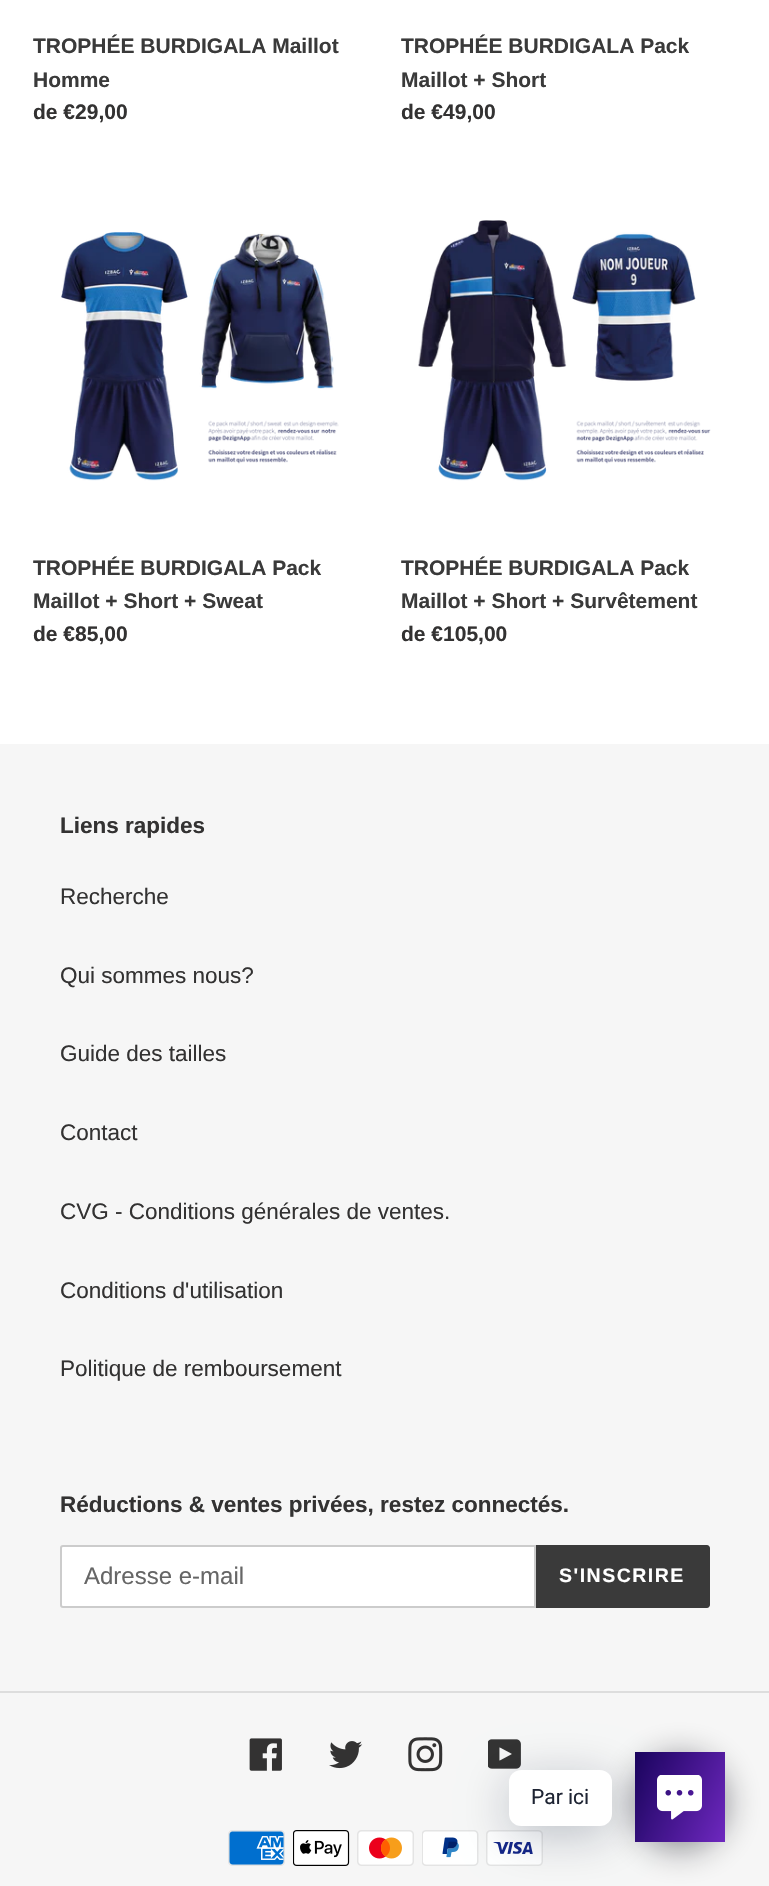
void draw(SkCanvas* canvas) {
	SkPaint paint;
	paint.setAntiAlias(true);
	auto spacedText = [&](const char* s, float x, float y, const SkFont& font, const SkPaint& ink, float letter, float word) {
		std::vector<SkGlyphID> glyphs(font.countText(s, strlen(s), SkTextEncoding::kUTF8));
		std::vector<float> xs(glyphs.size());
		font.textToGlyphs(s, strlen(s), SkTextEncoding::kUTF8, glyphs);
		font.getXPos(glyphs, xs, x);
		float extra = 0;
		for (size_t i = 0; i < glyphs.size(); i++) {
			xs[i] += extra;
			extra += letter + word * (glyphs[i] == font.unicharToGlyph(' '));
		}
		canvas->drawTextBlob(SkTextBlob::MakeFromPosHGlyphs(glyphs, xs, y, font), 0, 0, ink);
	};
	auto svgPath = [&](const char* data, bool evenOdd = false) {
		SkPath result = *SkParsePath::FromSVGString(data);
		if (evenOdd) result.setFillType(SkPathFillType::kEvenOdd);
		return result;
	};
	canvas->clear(0xffffffff);
	SkFont f1(fontMgr->matchFamilyStyle("Liberation Sans", SkFontStyle::Bold()), 21);
	f1.setSubpixel(true);
	paint.setColor(0xff3a3a3a);
	canvas->drawString("TROPHÉE BURDIGALA Maillot", 33, 53, f1, paint);
	canvas->drawString("Homme", 33, 87, f1, paint);
	paint.setColor(0xff333232);
	canvas->drawString("de €29,00", 33, 119, f1, paint);
	paint.setColor(0xff3a3a3a);
	canvas->drawString("TROPHÉE BURDIGALA Pack", 401, 53, f1, paint);
	canvas->drawString("Maillot + Short", 401, 87, f1, paint);
	paint.setColor(0xff333232);
	canvas->drawString("de €49,00", 401, 119, f1, paint);
	canvas->drawImageRect(SkImages::DeferredFromEncodedData(SkData::MakeFromFileName("img1.png")), SkRect::MakeXYWH(61, 232, 278, 249), SkSamplingOptions());
	paint.setColor(0xff3a3a3a);
	canvas->drawString("TROPHÉE BURDIGALA Pack", 33, 575, f1, paint);
	canvas->drawString("Maillot + Short + Sweat", 33, 608, f1, paint);
	paint.setColor(0xff333232);
	canvas->drawString("de €85,00", 33, 641, f1, paint);
	canvas->drawImageRect(SkImages::DeferredFromEncodedData(SkData::MakeFromFileName("img2.png")), SkRect::MakeXYWH(418, 220, 293, 261), SkSamplingOptions());
	paint.setColor(0xff3a3a3a);
	canvas->drawString("TROPHÉE BURDIGALA Pack", 401, 575, f1, paint);
	canvas->drawString("Maillot + Short + Survêtement", 401, 608, f1, paint);
	paint.setColor(0xff333232);
	canvas->drawString("de €105,00", 401, 641, f1, paint);
	paint.setColor(0xfff6f6f6);
	canvas->drawRect(SkRect::MakeXYWH(0, 744, 769, 1142), paint);
	SkFont f2(fontMgr->matchFamilyStyle("Liberation Sans", SkFontStyle::Bold()), 22.5);
	f2.setSubpixel(true);
	paint.setColor(0xff333232);
	canvas->drawString("Liens rapides", 60, 833, f2, paint);
	SkFont f3(fontMgr->matchFamilyStyle("Liberation Sans", SkFontStyle::Normal()), 22.5);
	f3.setSubpixel(true);
	canvas->drawString("Recherche", 60, 904, f3, paint);
	canvas->drawString("Qui sommes nous?", 60, 983, f3, paint);
	canvas->drawString("Guide des tailles", 60, 1061, f3, paint);
	canvas->drawString("Contact", 60, 1140, f3, paint);
	canvas->drawString("CVG - Conditions générales de ventes.", 60, 1219, f3, paint);
	canvas->drawString("Conditions d'utilisation", 60, 1298, f3, paint);
	canvas->drawString("Politique de remboursement", 60, 1376, f3, paint);
	canvas->drawString("Réductions & ventes privées, restez connectés.", 60, 1512, f2, paint);
	paint.setColor(0xffffffff);
	canvas->drawPath(svgPath("M63 1546H535V1607H63C62 1607 61 1606 61 1605V1548C61 1547 62 1546 63 1546Z"), paint);
	paint.setStroke(true);
	paint.setStrokeWidth(2);
	paint.setColor(0xffcccccc);
	canvas->drawPath(svgPath("M63 1546H535V1607H63C62 1607 61 1606 61 1605V1548C61 1547 62 1546 63 1546Z"), paint);
	SkFont f4(fontMgr->matchFamilyStyle("Liberation Sans", SkFontStyle::Normal()), 24);
	f4.setSubpixel(true);
	paint.setStroke(false);
	paint.setColor(0xff666666);
	canvas->drawString("Adresse e-mail", 84, 1584, f4, paint);
	paint.setColor(0xff3a3a3a);
	canvas->drawPath(svgPath("M536 1545H707C708.5 1545 710 1546.5 710 1548V1605C710 1606.5 708.5 1608 707 1608H536Z"), paint);
	SkFont f5(fontMgr->matchFamilyStyle("Liberation Sans", SkFontStyle::Bold()), 19.5);
	f5.setSubpixel(true);
	paint.setColor(0xffffffff);
	spacedText("S'INSCRIRE", 559, 1582, f5, paint, 1.5, 0);
	paint.setColor(0xffdddddd);
	canvas->drawRect(SkRect::MakeXYWH(0, 1691, 769, 2), paint);
	canvas->drawImageRect(SkImages::DeferredFromEncodedData(SkData::MakeFromFileName("img3.png")), SkRect::MakeXYWH(249, 1738, 33, 33), SkSamplingOptions());
	canvas->drawImageRect(SkImages::DeferredFromEncodedData(SkData::MakeFromFileName("img4.png")), SkRect::MakeXYWH(329, 1741, 34, 28), SkSamplingOptions());
	canvas->drawImageRect(SkImages::DeferredFromEncodedData(SkData::MakeFromFileName("img5.png")), SkRect::MakeXYWH(408, 1737, 35, 35), SkSamplingOptions());
	canvas->drawImageRect(SkImages::DeferredFromEncodedData(SkData::MakeFromFileName("img6.png")), SkRect::MakeXYWH(488, 1739, 33, 30), SkSamplingOptions());
	canvas->drawImageRect(SkImages::DeferredFromEncodedData(SkData::MakeFromFileName("img7.png")), SkRect::MakeXYWH(228, 1830, 57, 36), SkSamplingOptions());
	canvas->drawImageRect(SkImages::DeferredFromEncodedData(SkData::MakeFromFileName("img8.png")), SkRect::MakeXYWH(293, 1830, 57, 36), SkSamplingOptions());
	canvas->drawImageRect(SkImages::DeferredFromEncodedData(SkData::MakeFromFileName("img9.png")), SkRect::MakeXYWH(357, 1830, 57, 36), SkSamplingOptions());
	canvas->drawImageRect(SkImages::DeferredFromEncodedData(SkData::MakeFromFileName("img10.png")), SkRect::MakeXYWH(422, 1830, 57, 36), SkSamplingOptions());
	canvas->drawImageRect(SkImages::DeferredFromEncodedData(SkData::MakeFromFileName("img11.png")), SkRect::MakeXYWH(486, 1830, 57, 36), SkSamplingOptions());
	paint.setColor(0x80020610);
	paint.setMaskFilter(SkMaskFilter::MakeBlur(kNormal_SkBlurStyle, 18));
	canvas->drawRoundRect(SkRect::MakeXYWH(635, 1758, 90, 90), 45, 45, paint);
	paint.setMaskFilter(nullptr);
	{
		const SkColor colors[] = {0xff19025c, 0xff6e28bf};
		const float stops[] = {0, 1};
		const SkPoint ends[] = {{625, 1772}, {734, 1822}};
		paint.setShader(SkGradientShader::MakeLinear(ends, colors, stops, 2, SkTileMode::kClamp));
		paint.setAlpha(255);
	}
	canvas->drawRect(SkRect::MakeXYWH(635, 1752, 90, 90), paint);
	paint.setShader(nullptr);
	paint.setColor(0x3d00122e);
	paint.setMaskFilter(SkMaskFilter::MakeBlur(kNormal_SkBlurStyle, 24));
	canvas->drawRoundRect(SkRect::MakeXYWH(509, 1779, 103, 56), 12, 12, paint);
	paint.setMaskFilter(nullptr);
	paint.setColor(0xffffffff);
	canvas->drawRoundRect(SkRect::MakeXYWH(509, 1770, 103, 56), 12, 12, paint);
	SkFont f6(fontMgr->matchFamilyStyle("Roboto", SkFontStyle::Normal()), 21);
	f6.setSubpixel(true);
	paint.setColor(0xff1e2433);
	canvas->drawString("Par ici", 531, 1804, f6, paint);
	canvas->drawImageRect(SkImages::DeferredFromEncodedData(SkData::MakeFromFileName("img12.png")), SkRect::MakeXYWH(657, 1775, 45, 45), SkSamplingOptions());
}
